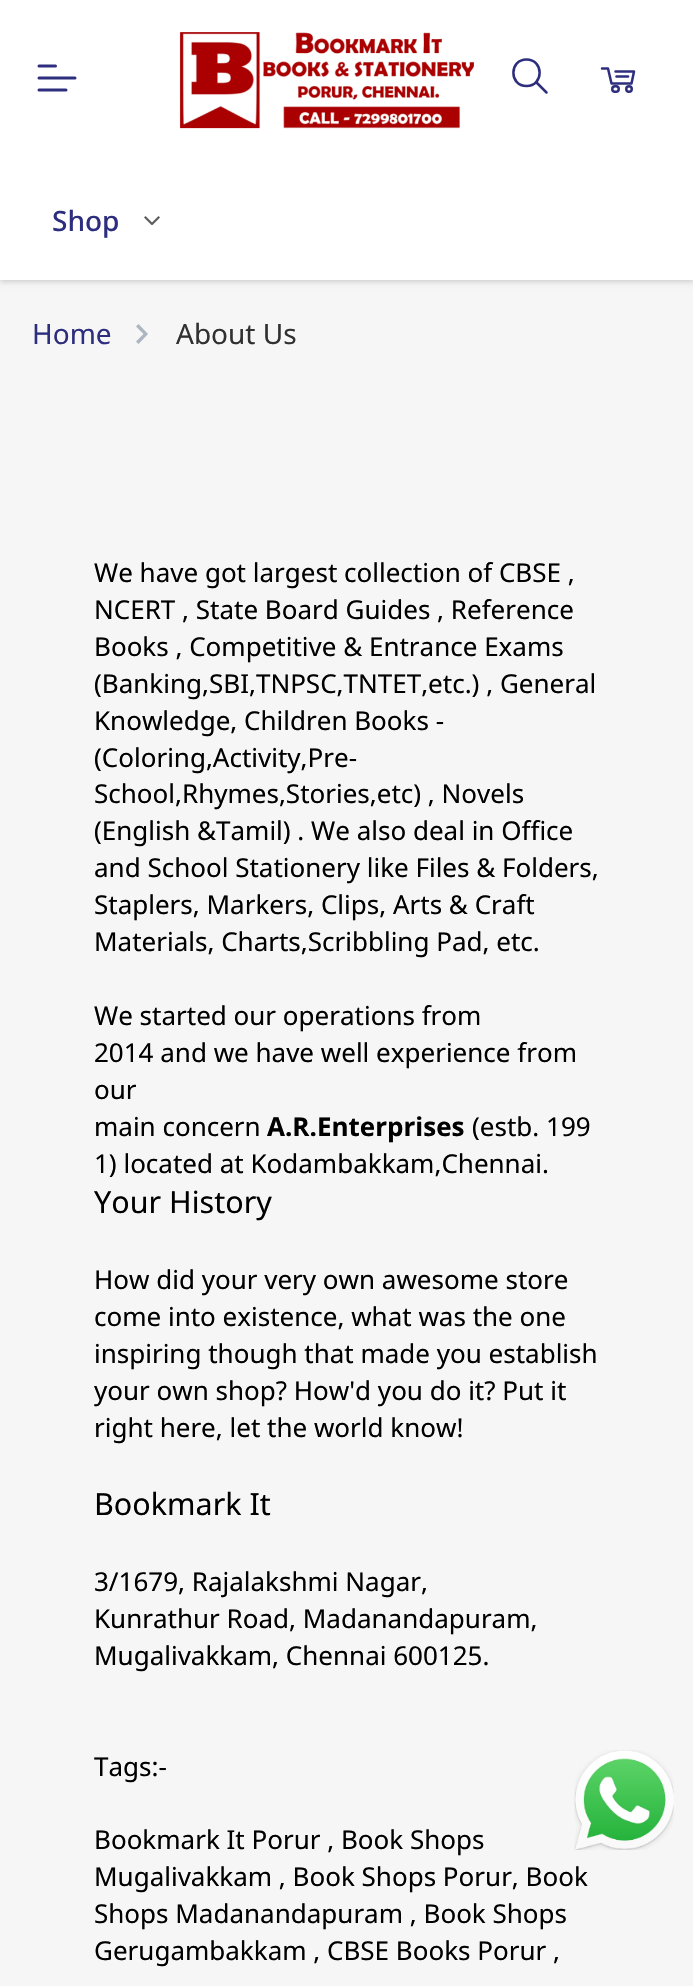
void draw(SkCanvas* canvas) {
	SkPaint paint;
	paint.setAntiAlias(true);
	auto svgPath = [&](const char* data, bool evenOdd = false) {
		SkPath result = *SkParsePath::FromSVGString(data);
		if (evenOdd) result.setFillType(SkPathFillType::kEvenOdd);
		return result;
	};
	canvas->clear(0xfff6f6f6);
	paint.setColor(0x0f000000);
	paint.setMaskFilter(SkMaskFilter::MakeBlur(kNormal_SkBlurStyle, 2));
	canvas->drawRect(SkRect::MakeXYWH(0, 2, 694, 280), paint);
	paint.setMaskFilter(nullptr);
	paint.setColor(0x1a000000);
	paint.setMaskFilter(SkMaskFilter::MakeBlur(kNormal_SkBlurStyle, 3));
	canvas->drawRect(SkRect::MakeXYWH(0, 2, 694, 280), paint);
	paint.setMaskFilter(nullptr);
	paint.setColor(0xffffffff);
	canvas->drawRect(SkRect::MakeXYWH(0, 0, 693, 280), paint);
	paint.setStroke(true);
	paint.setStrokeWidth(3);
	paint.setStrokeCap(SkPaint::kRound_Cap);
	paint.setStrokeJoin(SkPaint::kRound_Join);
	paint.setColor(0xff2e2e7e);
	canvas->drawPath(svgPath("M39 66H55.5M39 78H75M39 90H66"), paint);
	canvas->drawImageRect(SkImages::DeferredFromEncodedData(SkData::MakeFromFileName("img1.png")), SkRect::MakeXYWH(179, 32, 295, 97), SkSamplingOptions());
	paint.setStrokeWidth(2.5);
	canvas->drawPath(svgPath("M546.5 92.5L536 82M526.5 86C544 86 544 59.5 526.5 59.5C509 59.5 509 86 526.5 86Z"), paint);
	canvas->drawPath(svgPath("M602 68.5H608L611.5 83.5H631.5L634 71.5H615.5"), paint);
	paint.setStrokeJoin(SkPaint::kMiter_Join);
	canvas->drawPath(svgPath("M616.5 76.5H628"), paint);
	paint.setStrokeCap(SkPaint::kButt_Cap);
	canvas->drawRoundRect(SkRect::MakeXYWH(612.25, 86.25, 6.5, 5.5), 2.75, 2.75, paint);
	canvas->drawCircle(629, 89, 2.75, paint);
	SkFont f1(fontMgr->matchFamilyStyle("Noto Sans", SkFontStyle(500, SkFontStyle::kNormal_Width, SkFontStyle::kUpright_Slant)), 28);
	f1.setSubpixel(true);
	paint.setStroke(false);
	canvas->drawString("Shop", 52, 231, f1, paint);
	canvas->drawImageRect(SkImages::DeferredFromEncodedData(SkData::MakeFromFileName("img2.png")), SkRect::MakeXYWH(144, 216, 16, 9), SkSamplingOptions());
	SkFont f2(fontMgr->matchFamilyStyle("Noto Sans", SkFontStyle::Normal()), 28);
	f2.setSubpixel(true);
	canvas->drawString("Home", 32, 344, f2, paint);
	paint.setColor(0xffacb5c2);
	canvas->drawPath(svgPath("M138.5 344L148 334L138.5 324L136 326.5L143.5 334L136 341.5Z"), paint);
	paint.setColor(0xff313131);
	canvas->drawString("About Us", 176, 344, f2, paint);
	SkFont f3(fontMgr->matchFamilyStyle("Noto Sans", SkFontStyle::Normal()), 26);
	f3.setSubpixel(true);
	paint.setColor(0xff000000);
	canvas->drawString("We have got largest collection of CBSE ,", 94, 582, f3, paint);
	canvas->drawString("NCERT , State Board Guides , Reference", 94, 619, f3, paint);
	canvas->drawString("Books , Competitive & Entrance Exams", 94, 656, f3, paint);
	canvas->drawString("(Banking,SBI,TNPSC,TNTET,etc.) , General", 94, 693, f3, paint);
	canvas->drawString("Knowledge, Children Books -", 94, 730, f3, paint);
	canvas->drawString("(Coloring,Activity,Pre-", 94, 767, f3, paint);
	canvas->drawString("School,Rhymes,Stories,etc) , Novels", 94, 803, f3, paint);
	canvas->drawString("(English &Tamil) . We also deal in Office", 94, 840, f3, paint);
	canvas->drawString("and School Stationery like Files & Folders,", 94, 877, f3, paint);
	canvas->drawString("Staplers, Markers, Clips, Arts & Craft", 94, 914, f3, paint);
	canvas->drawString("Materials, Charts,Scribbling Pad, etc.", 94, 951, f3, paint);
	canvas->drawString("We started our operations from", 94, 1025, f3, paint);
	canvas->drawString("2014 and we have well experience from", 94, 1062, f3, paint);
	canvas->drawString("our", 94, 1099, f3, paint);
	canvas->drawString("main concern", 94, 1136, f3, paint);
	SkFont f4(fontMgr->matchFamilyStyle("Noto Sans", SkFontStyle::Bold()), 26);
	f4.setSubpixel(true);
	canvas->drawString("A.R.Enterprises", 267, 1136, f4, paint);
	canvas->drawString("(estb. 199", 472, 1136, f3, paint);
	canvas->drawString("1) located at Kodambakkam,Chennai.", 94, 1173, f3, paint);
	SkFont f5(fontMgr->matchFamilyStyle("Noto Sans", SkFontStyle::Normal()), 30.5);
	f5.setSubpixel(true);
	canvas->drawString("Your History", 94, 1213, f5, paint);
	canvas->drawString("How did your very own awesome store", 94, 1289, f3, paint);
	canvas->drawString("come into existence, what was the one", 94, 1326, f3, paint);
	canvas->drawString("inspiring though that made you establish", 94, 1363, f3, paint);
	canvas->drawString("your own shop? How'd you do it? Put it", 94, 1400, f3, paint);
	canvas->drawString("right here, let the world know!", 94, 1437, f3, paint);
	canvas->drawString("Bookmark It", 94, 1515, f5, paint);
	canvas->drawString("3/1679, Rajalakshmi Nagar,", 94, 1591, f3, paint);
	canvas->drawString("Kunrathur Road, Madanandapuram,", 94, 1628, f3, paint);
	canvas->drawString("Mugalivakkam, Chennai 600125.", 94, 1665, f3, paint);
	canvas->drawString("Tags:-", 94, 1776, f3, paint);
	canvas->drawString("Bookmark It Porur , Book Shops", 94, 1849, f3, paint);
	canvas->drawString("Mugalivakkam , Book Shops Porur, Book", 94, 1886, f3, paint);
	canvas->drawString("Shops Madanandapuram , Book Shops", 94, 1923, f3, paint);
	canvas->drawString("Gerugambakkam , CBSE Books Porur ,", 94, 1960, f3, paint);
	canvas->drawImageRect(SkImages::DeferredFromEncodedData(SkData::MakeFromFileName("img3.png")), SkRect::MakeXYWH(574, 1750, 100, 100), SkSamplingOptions());
}
